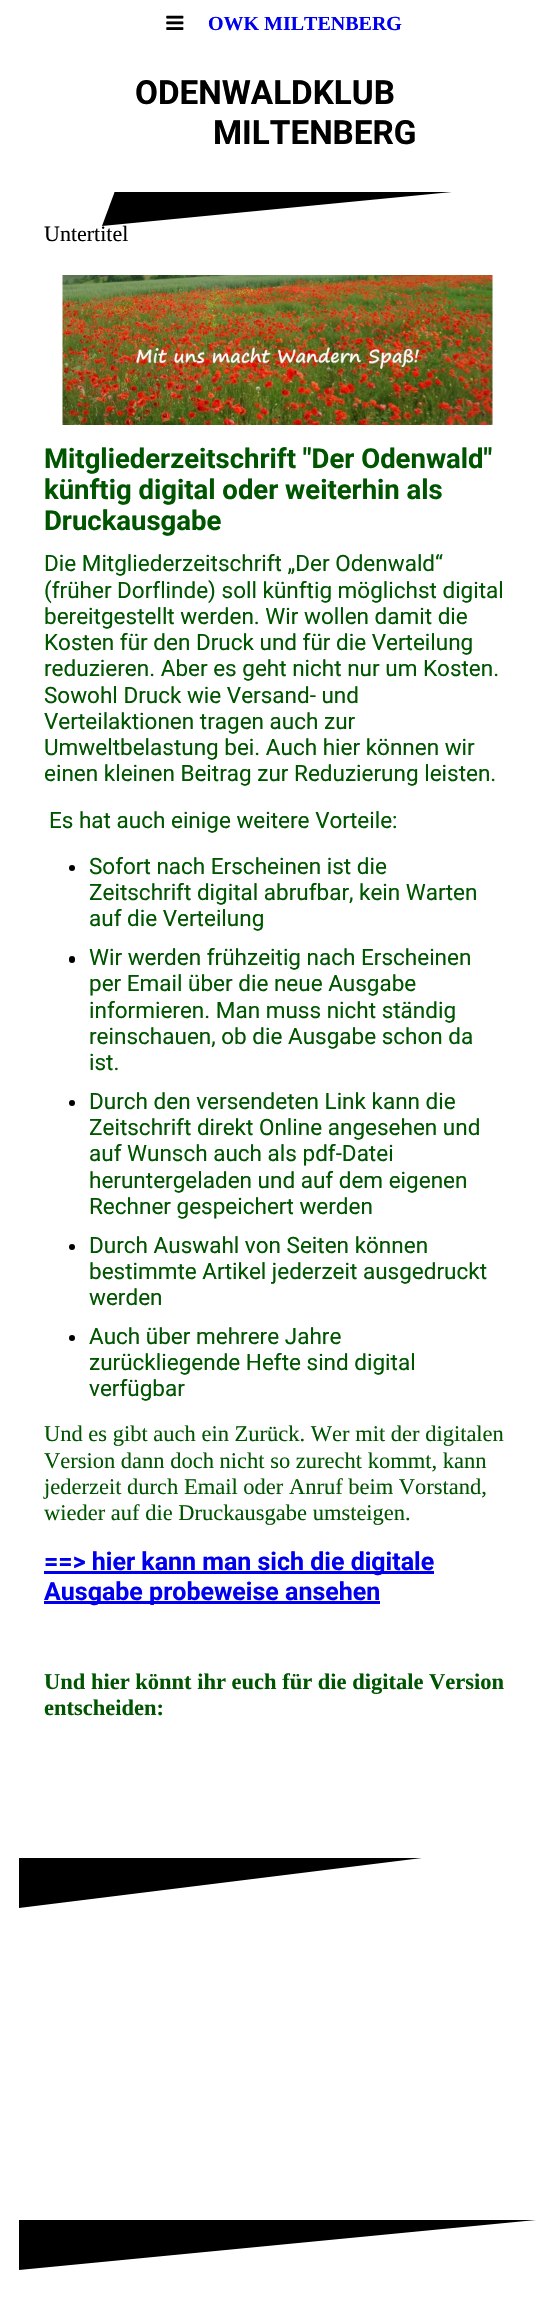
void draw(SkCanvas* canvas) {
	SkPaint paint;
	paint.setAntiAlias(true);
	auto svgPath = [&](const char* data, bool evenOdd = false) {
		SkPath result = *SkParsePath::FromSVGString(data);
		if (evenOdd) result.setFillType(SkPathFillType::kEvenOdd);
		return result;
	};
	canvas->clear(0xffffffff);
	canvas->drawImageRect(SkImages::DeferredFromEncodedData(SkData::MakeFromFileName("img1.png")), SkRect::MakeXYWH(166, 15, 18, 15), SkSamplingOptions());
	SkFont f1(fontMgr->matchFamilyStyle("Liberation Serif", SkFontStyle::Bold()), 20);
	f1.setSubpixel(true);
	paint.setColor(0xff0000ee);
	canvas->drawString("OWK MILTENBERG", 208, 30, f1, paint);
	paint.setColor(0xff000000);
	canvas->drawPath(svgPath("M102 226V192H452Z"), paint);
	SkFont f2(fontMgr->matchFamilyStyle("Liberation Serif", SkFontStyle::Normal()), 22);
	f2.setSubpixel(true);
	canvas->drawString("Untertitel", 44, 241, f2, paint);
	paint.setColor(0xffffffff);
	canvas->drawPath(svgPath("M102 226V72H159Z"), paint);
	SkFont f3(fontMgr->matchFamilyStyle("Roboto", SkFontStyle::Bold()), 33.25);
	f3.setSubpixel(true);
	paint.setColor(0xff000000);
	canvas->drawString("ODENWALDKLUB", 135, 104, f3, paint);
	canvas->drawString("MILTENBERG", 213, 144, f3, paint);
	canvas->drawImageRect(SkImages::DeferredFromEncodedData(SkData::MakeFromFileName("img2.png")), SkRect::MakeXYWH(62, 275, 431, 150), SkSamplingOptions());
	SkFont f4(fontMgr->matchFamilyStyle("Roboto", SkFontStyle::Bold()), 27.5);
	f4.setSubpixel(true);
	paint.setColor(0xff005500);
	canvas->drawString("Mitgliederzeitschrift \"Der Odenwald\"", 44, 468, f4, paint);
	canvas->drawString("künftig digital oder weiterhin als", 44, 499, f4, paint);
	canvas->drawString("Druckausgabe", 44, 530, f4, paint);
	SkFont f5(fontMgr->matchFamilyStyle("Roboto", SkFontStyle::Normal()), 22.5);
	f5.setSubpixel(true);
	canvas->drawString("Die Mitgliederzeitschrift „Der Odenwald“", 44, 571, f5, paint);
	canvas->drawString("(früher Dorflinde) soll künftig möglichst digital", 44, 598, f5, paint);
	canvas->drawString("bereitgestellt werden. Wir wollen damit die", 44, 624, f5, paint);
	canvas->drawString("Kosten für den Druck und für die Verteilung", 44, 650, f5, paint);
	canvas->drawString("reduzieren. Aber es geht nicht nur um Kosten.", 44, 676, f5, paint);
	canvas->drawString("Sowohl Druck wie Versand- und", 44, 703, f5, paint);
	canvas->drawString("Verteilaktionen tragen auch zur", 44, 729, f5, paint);
	canvas->drawString("Umweltbelastung bei. Auch hier können wir", 44, 755, f5, paint);
	canvas->drawString("einen kleinen Beitrag zur Reduzierung leisten.", 44, 781, f5, paint);
	canvas->drawString("Es hat auch einige weitere Vorteile:", 49, 828, f5, paint);
	paint.setColor(0xff000000);
	canvas->drawCircle(72, 868, 3, paint);
	paint.setColor(0xff005500);
	canvas->drawString("Sofort nach Erscheinen ist die", 89, 874, f5, paint);
	canvas->drawString("Zeitschrift digital abrufbar, kein Warten", 89, 900, f5, paint);
	canvas->drawString("auf die Verteilung", 89, 926, f5, paint);
	paint.setColor(0xff000000);
	canvas->drawRoundRect(SkRect::MakeXYWH(69, 956, 6, 7), 3, 3, paint);
	paint.setColor(0xff005500);
	canvas->drawString("Wir werden frühzeitig nach Erscheinen", 89, 965, f5, paint);
	canvas->drawString("per Email über die neue Ausgabe", 89, 991, f5, paint);
	canvas->drawString("informieren. Man muss nicht ständig", 89, 1018, f5, paint);
	canvas->drawString("reinschauen, ob die Ausgabe schon da", 89, 1044, f5, paint);
	canvas->drawString("ist.", 89, 1070, f5, paint);
	paint.setColor(0xff000000);
	canvas->drawCircle(72, 1103, 3, paint);
	paint.setColor(0xff005500);
	canvas->drawString("Durch den versendeten Link kann die", 89, 1109, f5, paint);
	canvas->drawString("Zeitschrift direkt Online angesehen und", 89, 1135, f5, paint);
	canvas->drawString("auf Wunsch auch als pdf-Datei", 89, 1161, f5, paint);
	canvas->drawString("heruntergeladen und auf dem eigenen", 89, 1188, f5, paint);
	canvas->drawString("Rechner gespeichert werden", 89, 1214, f5, paint);
	paint.setColor(0xff000000);
	canvas->drawCircle(72, 1247, 3, paint);
	paint.setColor(0xff005500);
	canvas->drawString("Durch Auswahl von Seiten können", 89, 1253, f5, paint);
	canvas->drawString("bestimmte Artikel jederzeit ausgedruckt", 89, 1279, f5, paint);
	canvas->drawString("werden", 89, 1305, f5, paint);
	paint.setColor(0xff000000);
	canvas->drawCircle(72, 1338, 3, paint);
	paint.setColor(0xff005500);
	canvas->drawString("Auch über mehrere Jahre", 89, 1344, f5, paint);
	canvas->drawString("zurückliegende Hefte sind digital", 89, 1370, f5, paint);
	canvas->drawString("verfügbar", 89, 1396, f5, paint);
	SkFont f6(fontMgr->matchFamilyStyle("Liberation Serif", SkFontStyle::Normal()), 22.5);
	f6.setSubpixel(true);
	canvas->drawString("Und es gibt auch ein Zurück. Wer mit der digitalen", 44, 1441, f6, paint);
	canvas->drawString("Version dann doch nicht so zurecht kommt, kann", 44, 1468, f6, paint);
	canvas->drawString("jederzeit durch Email oder Anruf beim Vorstand,", 44, 1494, f6, paint);
	canvas->drawString("wieder auf die Druckausgabe umsteigen.", 44, 1520, f6, paint);
	paint.setColor(0xff0000ee);
	canvas->drawRect(SkRect::MakeXYWH(44, 1571, 390, 3), paint);
	SkFont f7(fontMgr->matchFamilyStyle("Roboto", SkFontStyle::Bold()), 25);
	f7.setSubpixel(true);
	canvas->drawString("==> hier kann man sich die digitale", 44, 1570, f7, paint);
	canvas->drawRect(SkRect::MakeXYWH(44, 1601, 336, 3), paint);
	canvas->drawString("Ausgabe probeweise ansehen", 44, 1600, f7, paint);
	SkFont f8(fontMgr->matchFamilyStyle("Liberation Serif", SkFontStyle::Bold()), 22.5);
	f8.setSubpixel(true);
	paint.setColor(0xff005500);
	canvas->drawString("Und hier könnt ihr euch für die digitale Version", 44, 1689, f8, paint);
	canvas->drawString("entscheiden:", 44, 1715, f8, paint);
	paint.setColor(0xff000000);
	canvas->drawPath(svgPath("M19 1908V1858H422Z"), paint);
	canvas->drawPath(svgPath("M19 2270V2220H536Z"), paint);
}
